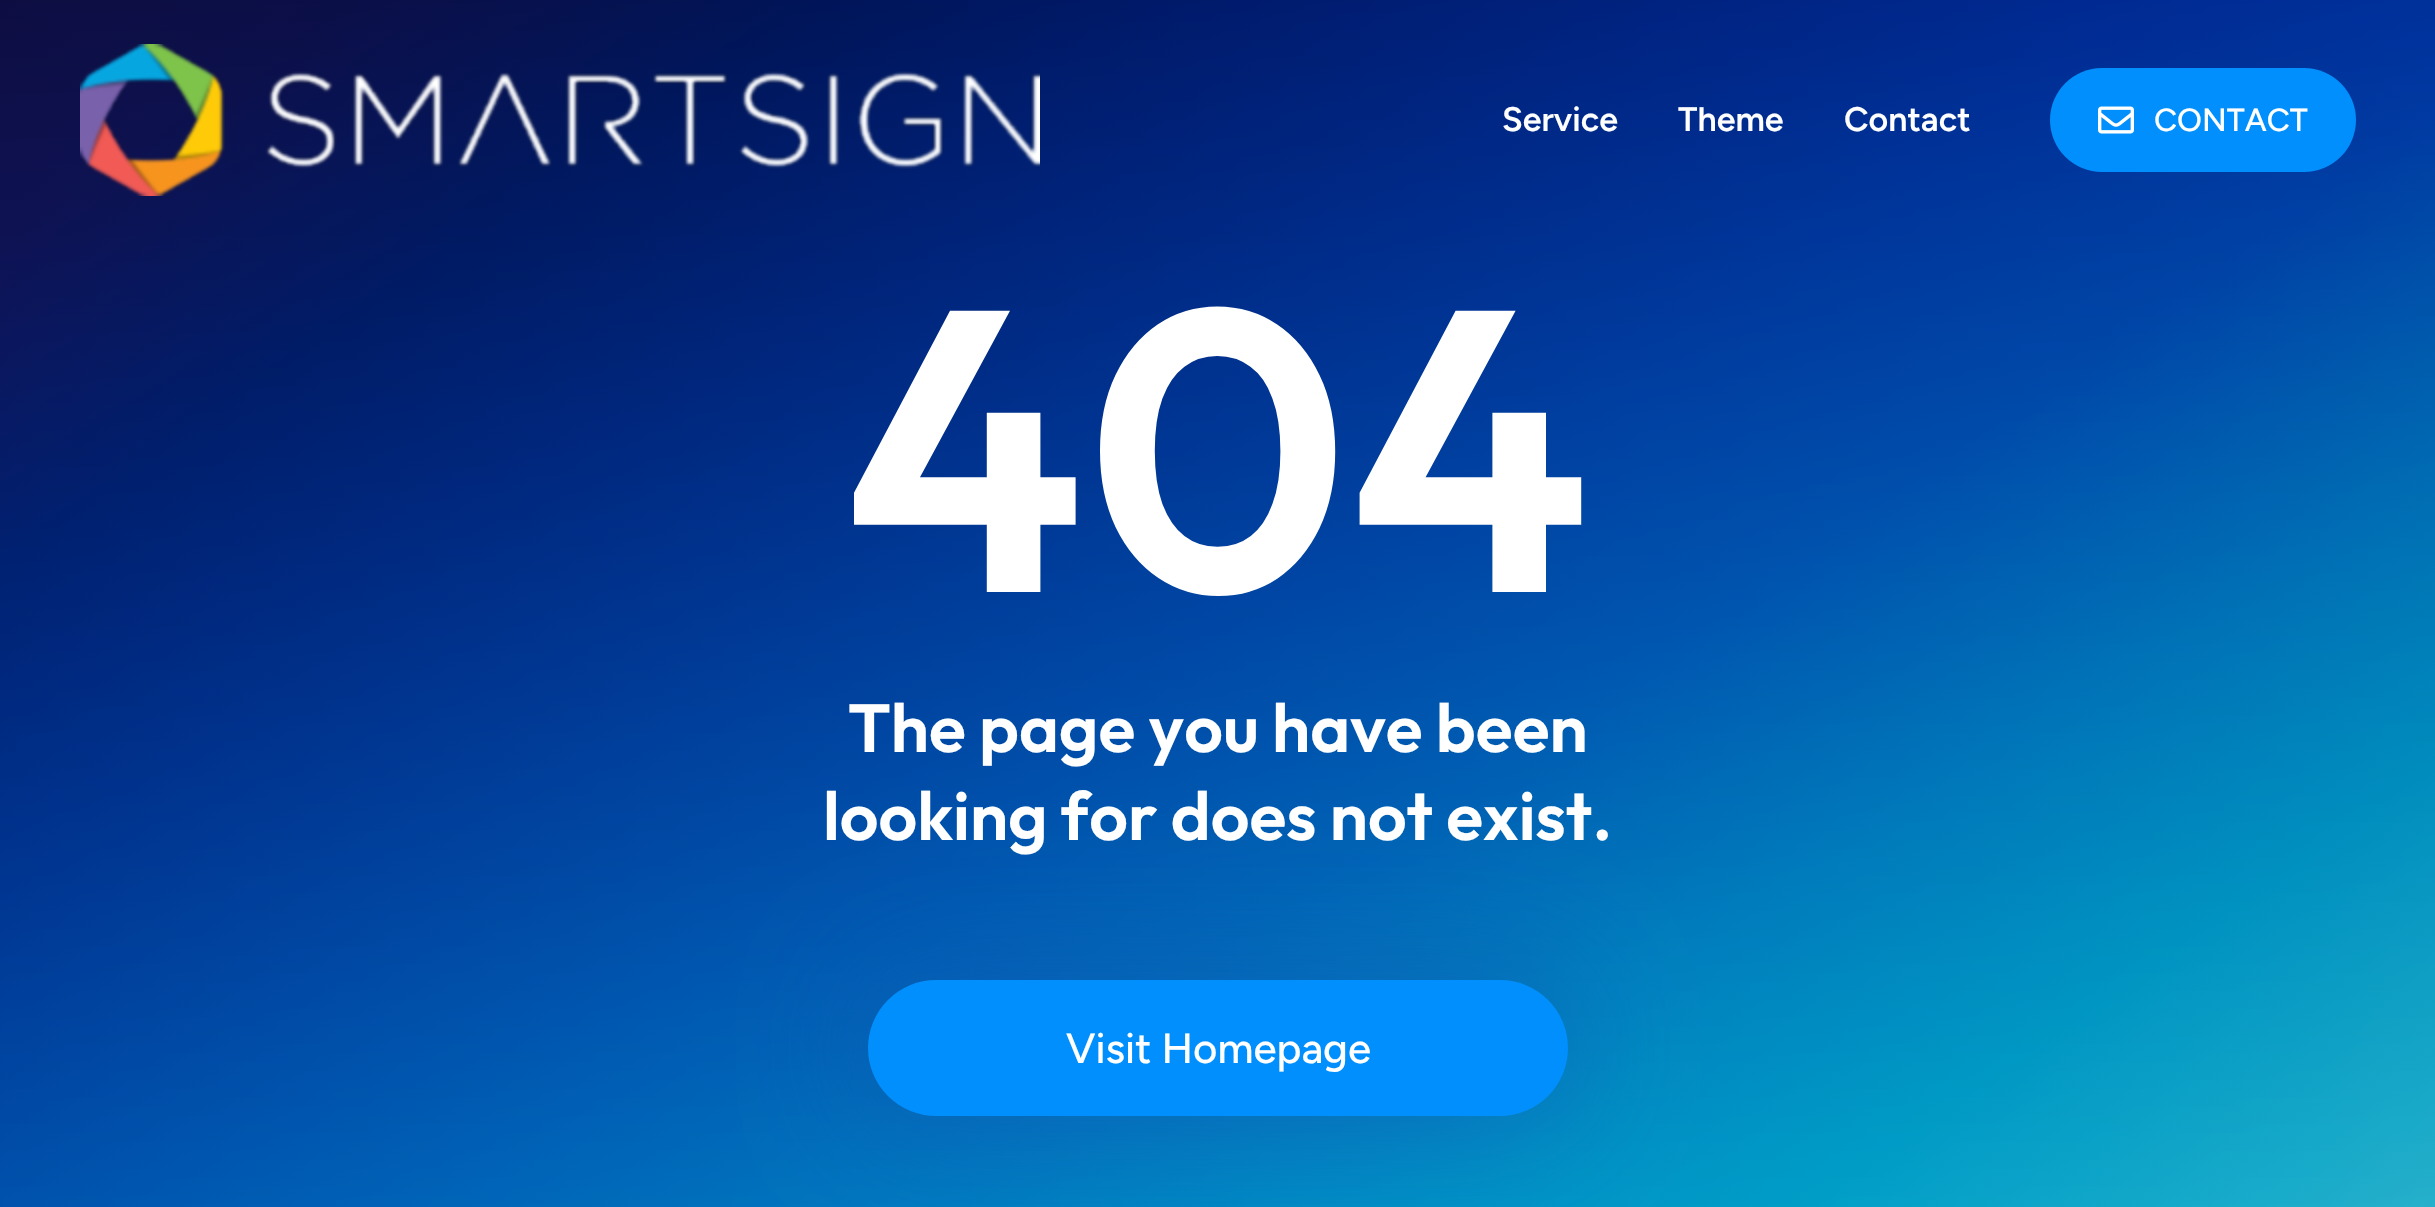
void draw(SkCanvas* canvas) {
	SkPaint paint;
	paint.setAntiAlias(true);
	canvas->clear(0xffffffff);
	canvas->drawImageRect(SkImages::DeferredFromEncodedData(SkData::MakeFromFileName("img3.png")), SkRect::MakeXYWH(0, 0, 2435, 1207), SkSamplingOptions());
	canvas->drawImageRect(SkImages::DeferredFromEncodedData(SkData::MakeFromFileName("img1.png")), SkRect::MakeXYWH(80, 44, 960, 152), SkSamplingOptions());
	SkFont f1(fontMgr->matchFamilyStyle("Figtree", SkFontStyle(600, SkFontStyle::kNormal_Width, SkFontStyle::kUpright_Slant)), 34);
	f1.setSubpixel(true);
	paint.setColor(0xffffffff);
	canvas->drawString("Service", 1502, 131, f1, paint);
	canvas->drawString("Theme", 1678, 131, f1, paint);
	canvas->drawString("Contact", 1844, 131, f1, paint);
	paint.setColor(0xff008ffc);
	canvas->drawRoundRect(SkRect::MakeXYWH(2050, 68, 306, 104), 52, 52, paint);
	canvas->drawImageRect(SkImages::DeferredFromEncodedData(SkData::MakeFromFileName("img2.png")), SkRect::MakeXYWH(2098, 106, 36, 28), SkSamplingOptions());
	SkFont f2(fontMgr->matchFamilyStyle("Figtree", SkFontStyle(500, SkFontStyle::kNormal_Width, SkFontStyle::kUpright_Slant)), 32);
	f2.setSubpixel(true);
	paint.setColor(0xffffffff);
	canvas->drawString("CONTACT", 2154, 131, f2, paint);
	SkFont f3(fontMgr->matchFamilyStyle("Outfit", SkFontStyle(600, SkFontStyle::kNormal_Width, SkFontStyle::kUpright_Slant)), 400);
	f3.setSubpixel(true);
	canvas->drawString("404", 844, 592, f3, paint);
	SkFont f4(fontMgr->matchFamilyStyle("Outfit", SkFontStyle(600, SkFontStyle::kNormal_Width, SkFontStyle::kUpright_Slant)), 68);
	f4.setSubpixel(true);
	canvas->drawString("The page you have been", 848, 752, f4, paint);
	canvas->drawString("looking for does not exist.", 823, 840, f4, paint);
	paint.setColor(0x801156b6);
	paint.setMaskFilter(SkMaskFilter::MakeBlur(kNormal_SkBlurStyle, 60));
	canvas->drawRoundRect(SkRect::MakeXYWH(868, 980, 700, 136), 68, 68, paint);
	paint.setMaskFilter(nullptr);
	paint.setColor(0xff008ffc);
	canvas->drawRoundRect(SkRect::MakeXYWH(868, 980, 700, 136), 68, 68, paint);
	SkFont f5(fontMgr->matchFamilyStyle("Figtree", SkFontStyle(500, SkFontStyle::kNormal_Width, SkFontStyle::kUpright_Slant)), 42);
	f5.setSubpixel(true);
	paint.setColor(0xffffffff);
	canvas->drawString("Visit Homepage", 1066, 1063, f5, paint);
}
